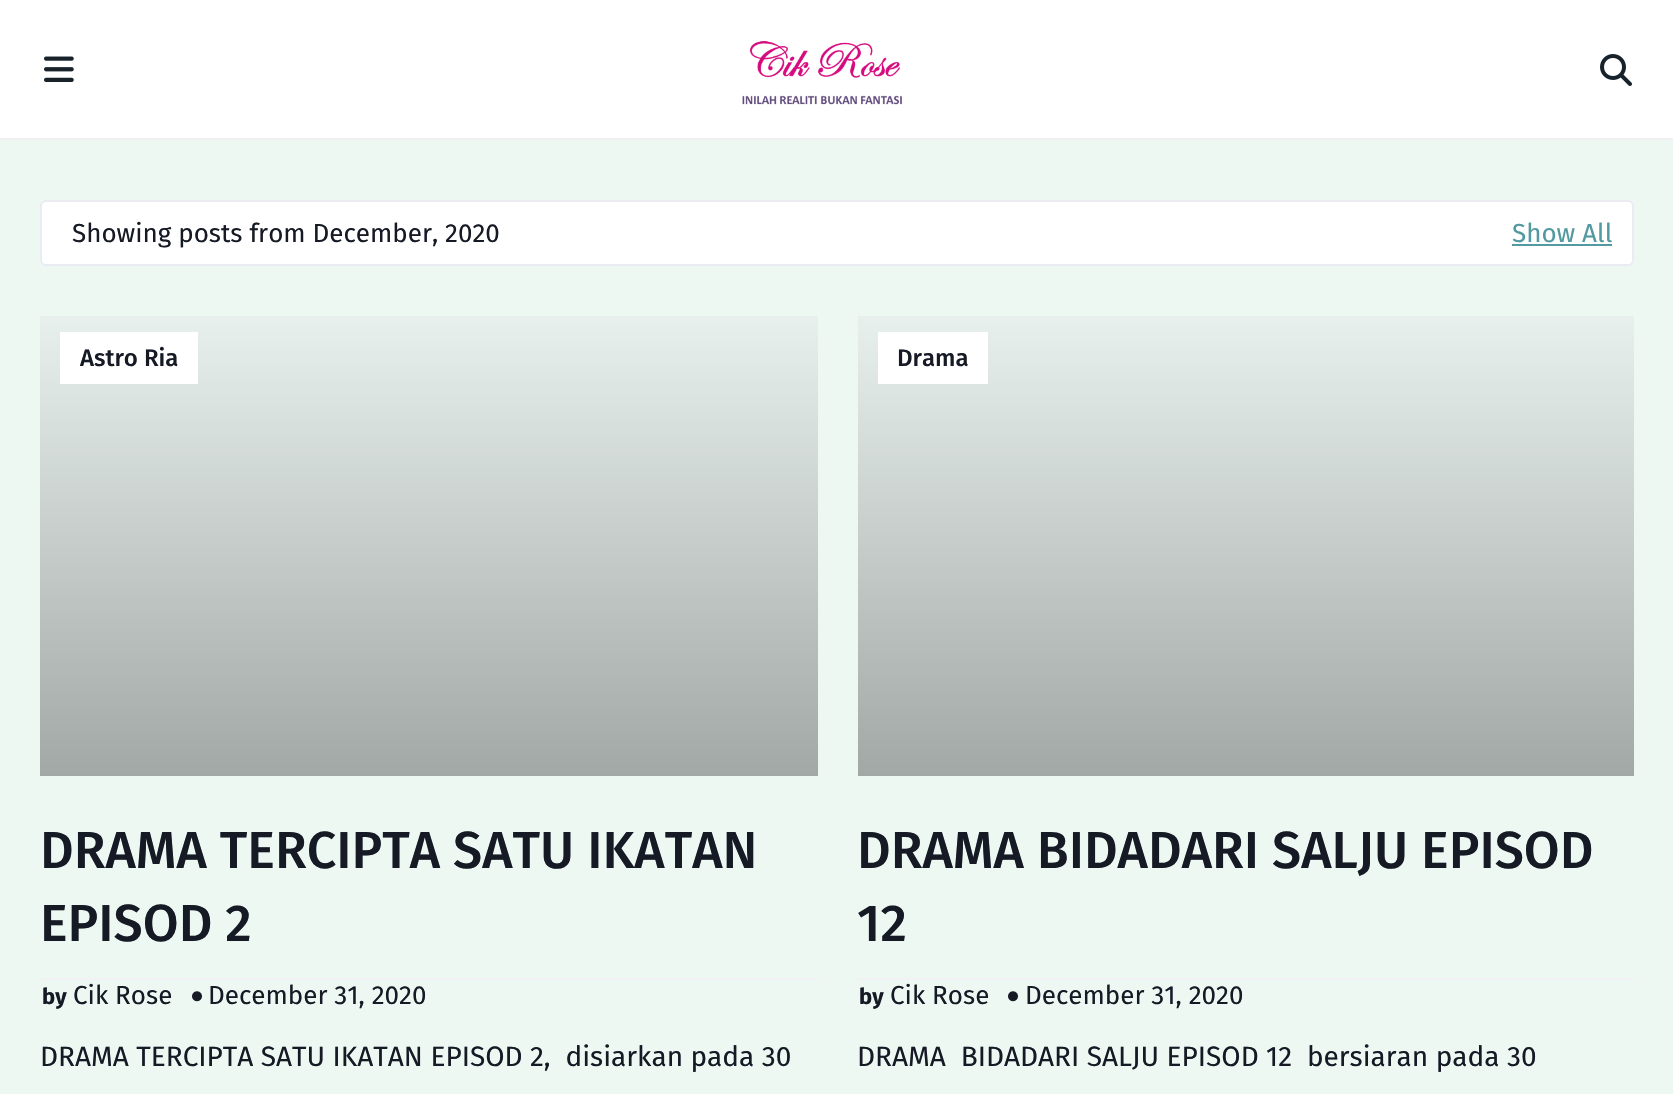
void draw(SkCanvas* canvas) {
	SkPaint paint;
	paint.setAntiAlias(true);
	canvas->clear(0xffedf8f3);
	paint.setColor(0xffffffff);
	canvas->drawRect(SkRect::MakeXYWH(0, 0, 1673, 138), paint);
	paint.setColor(0xfff0f0f0);
	canvas->drawRect(SkRect::MakeXYWH(0, 138, 1673, 2), paint);
	canvas->drawImageRect(SkImages::DeferredFromEncodedData(SkData::MakeFromFileName("img1.png")), SkRect::MakeXYWH(44, 56, 30, 26), SkSamplingOptions());
	canvas->drawImageRect(SkImages::DeferredFromEncodedData(SkData::MakeFromFileName("img2.png")), SkRect::MakeXYWH(742, 41, 160, 64), SkSamplingOptions());
	canvas->drawImageRect(SkImages::DeferredFromEncodedData(SkData::MakeFromFileName("img3.png")), SkRect::MakeXYWH(1600, 54, 32, 32), SkSamplingOptions());
	paint.setColor(0xffffffff);
	canvas->drawRoundRect(SkRect::MakeXYWH(41, 201, 1592, 64), 5, 5, paint);
	paint.setStroke(true);
	paint.setStrokeWidth(2);
	paint.setColor(0xffebebf3);
	canvas->drawRoundRect(SkRect::MakeXYWH(41, 201, 1592, 64), 5, 5, paint);
	SkFont f1(fontMgr->matchFamilyStyle("Fira Sans", SkFontStyle::Normal()), 26);
	f1.setSubpixel(true);
	paint.setStroke(false);
	paint.setColor(0xff151a25);
	canvas->drawString("Showing posts from December, 2020", 72, 242, f1, paint);
	paint.setColor(0xff539aa0);
	canvas->drawString("Show All", 1512, 242, f1, paint);
	canvas->drawRect(SkRect::MakeXYWH(1512, 244, 100, 2), paint);
	{
		const SkColor colors[] = {0xffe8f0ed, 0xffa2a8a6};
		const float stops[] = {0, 1};
		const SkPoint ends[] = {{429, 316}, {429, 776}};
		paint.setShader(SkGradientShader::MakeLinear(ends, colors, stops, 2, SkTileMode::kClamp));
		paint.setAlpha(255);
	}
	canvas->drawRect(SkRect::MakeXYWH(40, 316, 778, 460), paint);
	paint.setShader(nullptr);
	paint.setColor(0xffffffff);
	canvas->drawRect(SkRect::MakeXYWH(60, 332, 138, 52), paint);
	SkFont f2(fontMgr->matchFamilyStyle("Fira Sans", SkFontStyle(500, SkFontStyle::kNormal_Width, SkFontStyle::kUpright_Slant)), 24);
	f2.setSubpixel(true);
	paint.setColor(0xff151a25);
	canvas->drawString("Astro Ria", 80, 366, f2, paint);
	SkFont f3(fontMgr->matchFamilyStyle("Fira Sans", SkFontStyle(500, SkFontStyle::kNormal_Width, SkFontStyle::kUpright_Slant)), 52);
	f3.setSubpixel(true);
	canvas->drawString("DRAMA TERCIPTA SATU IKATAN", 40, 868, f3, paint);
	canvas->drawString("EPISOD 2", 40, 941, f3, paint);
	paint.setColor(0xfff2f2f6);
	canvas->drawRect(SkRect::MakeXYWH(40, 978, 778, 2), paint);
	SkFont f4(fontMgr->matchFamilyStyle("Fira Sans", SkFontStyle::Bold()), 22);
	f4.setSubpixel(true);
	paint.setColor(0xff151a25);
	canvas->drawString("by", 42, 1004, f4, paint);
	canvas->drawString("Cik Rose", 73, 1004, f1, paint);
	canvas->drawImageRect(SkImages::DeferredFromEncodedData(SkData::MakeFromFileName("img4.png")), SkRect::MakeXYWH(192, 991, 10, 11), SkSamplingOptions());
	canvas->drawString("December 31, 2020", 208, 1004, f1, paint);
	SkFont f5(fontMgr->matchFamilyStyle("Fira Sans", SkFontStyle::Normal()), 28);
	f5.setSubpixel(true);
	canvas->drawString("DRAMA TERCIPTA SATU IKATAN EPISOD 2,  disiarkan pada 30", 40, 1066, f5, paint);
	{
		const SkColor colors[] = {0xffe8f0ed, 0xffa2a8a6};
		const float stops[] = {0, 1};
		const SkPoint ends[] = {{1246, 316}, {1246, 776}};
		paint.setShader(SkGradientShader::MakeLinear(ends, colors, stops, 2, SkTileMode::kClamp));
		paint.setAlpha(255);
	}
	canvas->drawRect(SkRect::MakeXYWH(858, 316, 776, 460), paint);
	paint.setShader(nullptr);
	paint.setColor(0xffffffff);
	canvas->drawRect(SkRect::MakeXYWH(878, 332, 110, 52), paint);
	paint.setColor(0xff151a25);
	canvas->drawString("Drama", 897, 366, f2, paint);
	canvas->drawString("DRAMA BIDADARI SALJU EPISOD", 857, 868, f3, paint);
	canvas->drawString("12", 857, 941, f3, paint);
	paint.setColor(0xfff2f2f6);
	canvas->drawRect(SkRect::MakeXYWH(858, 978, 776, 2), paint);
	paint.setColor(0xff151a25);
	canvas->drawString("by", 859, 1004, f4, paint);
	canvas->drawString("Cik Rose", 890, 1004, f1, paint);
	canvas->drawImageRect(SkImages::DeferredFromEncodedData(SkData::MakeFromFileName("img4.png")), SkRect::MakeXYWH(1008, 991, 10, 11), SkSamplingOptions());
	canvas->drawString("December 31, 2020", 1025, 1004, f1, paint);
	canvas->drawString("DRAMA  BIDADARI SALJU EPISOD 12  bersiaran pada 30", 857, 1066, f5, paint);
}
